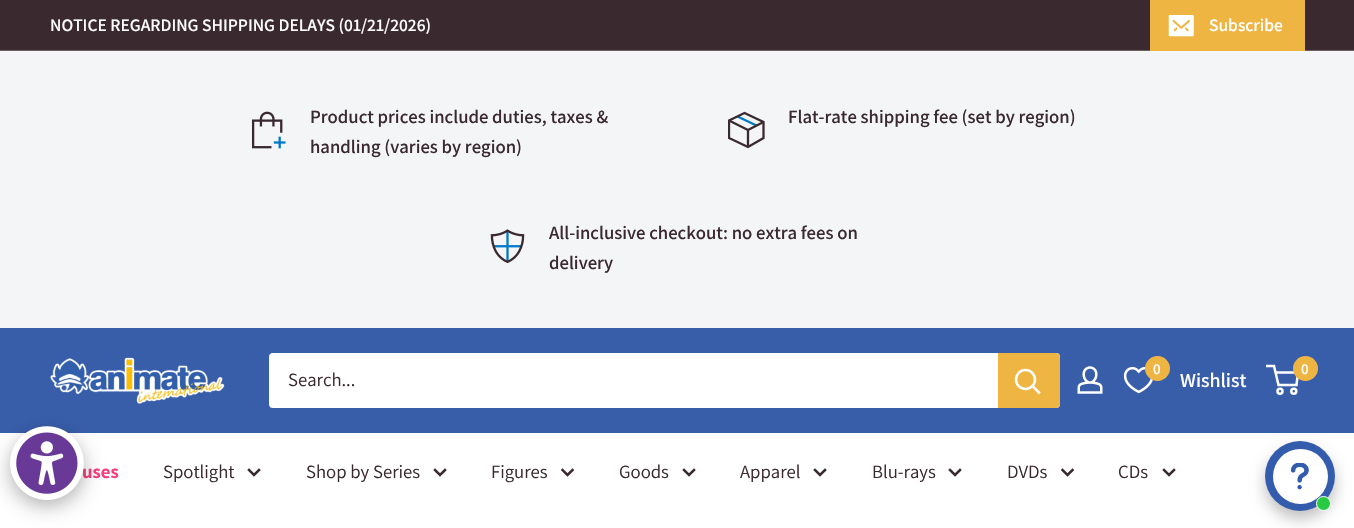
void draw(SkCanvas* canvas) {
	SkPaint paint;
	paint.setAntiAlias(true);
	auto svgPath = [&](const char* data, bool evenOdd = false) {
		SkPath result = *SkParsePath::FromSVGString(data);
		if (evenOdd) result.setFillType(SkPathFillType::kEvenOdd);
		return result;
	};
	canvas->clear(0xfff3f5f6);
	paint.setColor(0xff3a2a2f);
	canvas->drawRect(SkRect::MakeXYWH(0, 0, 1354, 50), paint);
	paint.setColor(0xff6f6163);
	canvas->drawRect(SkRect::MakeXYWH(0, 50, 1354, 1), paint);
	SkFont f1(fontMgr->matchFamilyStyle("Assistant", SkFontStyle(600, SkFontStyle::kNormal_Width, SkFontStyle::kUpright_Slant)), 17.5);
	f1.setSubpixel(true);
	paint.setColor(0xffffffff);
	canvas->drawString("NOTICE REGARDING SHIPPING DELAYS (01/21/2026)", 50, 31, f1, paint);
	paint.setColor(0xffefb542);
	canvas->drawRect(SkRect::MakeXYWH(1150, 0, 155, 51), paint);
	canvas->drawImageRect(SkImages::DeferredFromEncodedData(SkData::MakeFromFileName("img1.png")), SkRect::MakeXYWH(1168, 15, 26, 22), SkSamplingOptions());
	paint.setColor(0xffffffff);
	canvas->drawString("Subscribe", 1209, 31, f1, paint);
	canvas->drawImageRect(SkImages::DeferredFromEncodedData(SkData::MakeFromFileName("img2.png")), SkRect::MakeXYWH(251, 111, 35, 38), SkSamplingOptions());
	SkFont f2(fontMgr->matchFamilyStyle("Assistant", SkFontStyle(600, SkFontStyle::kNormal_Width, SkFontStyle::kUpright_Slant)), 18.75);
	f2.setSubpixel(true);
	paint.setColor(0xff3a2a2f);
	canvas->drawString("Product prices include duties, taxes &", 310, 123, f2, paint);
	canvas->drawString("handling (varies by region)", 310, 153, f2, paint);
	paint.setStroke(true);
	paint.setStrokeWidth(2.3);
	paint.setColor(0xff0079c7);
	canvas->drawPath(svgPath("M737.5 116.5L756.5 125.5"), paint);
	paint.setColor(0xff3a2a2f);
	canvas->drawPath(svgPath("M763.5 122L748 130L729 120.5M748 130V147"), paint);
	canvas->save();
	canvas->clipRect(SkRect::MakeXYWH(728, 111, 37, 38));
	paint.setStrokeCap(SkPaint::kSquare_Cap);
	canvas->drawPath(svgPath("M763.5 122V138L748 147L729 138V120.5L744.5 113Z"), paint);
	canvas->restore();
	paint.setStroke(false);
	canvas->drawString("Flat-rate shipping fee (set by region)", 788, 123, f2, paint);
	canvas->drawImageRect(SkImages::DeferredFromEncodedData(SkData::MakeFromFileName("img3.png")), SkRect::MakeXYWH(490, 229, 35, 35), SkSamplingOptions());
	canvas->drawString("All-inclusive checkout: no extra fees on", 549, 239, f2, paint);
	canvas->drawString("delivery", 549, 269, f2, paint);
	paint.setColor(0xff385eaa);
	canvas->drawRect(SkRect::MakeXYWH(0, 328, 1354, 105), paint);
	canvas->drawImageRect(SkImages::DeferredFromEncodedData(SkData::MakeFromFileName("img4.png")), SkRect::MakeXYWH(50, 357, 175, 47), SkSamplingOptions());
	paint.setColor(0xffffffff);
	canvas->drawRoundRect(SkRect::MakeXYWH(269, 353, 791, 55), 4, 4, paint);
	SkFont f3(fontMgr->matchFamilyStyle("Assistant", SkFontStyle::Normal()), 18.75);
	f3.setSubpixel(true);
	paint.setColor(0xff3a2a2f);
	canvas->drawString("Search...", 288, 386, f3, paint);
	paint.setColor(0xffefb542);
	canvas->drawPath(svgPath("M998 353H1056C1058 353 1060 355 1060 357V404C1060 406 1058 408 1056 408H998Z"), paint);
	paint.setStroke(true);
	paint.setStrokeWidth(2.5);
	paint.setColor(0xffffffff);
	canvas->drawPath(svgPath("M1039 392.5L1032.5 386"), paint);
	paint.setStrokeCap(SkPaint::kButt_Cap);
	canvas->drawCircle(1025.5, 379.5, 9.5, paint);
	canvas->drawImageRect(SkImages::DeferredFromEncodedData(SkData::MakeFromFileName("img5.png")), SkRect::MakeXYWH(1077, 366, 26, 28), SkSamplingOptions());
	canvas->drawImageRect(SkImages::DeferredFromEncodedData(SkData::MakeFromFileName("img6.png")), SkRect::MakeXYWH(1123, 366, 30, 28), SkSamplingOptions());
	paint.setStroke(false);
	paint.setColor(0xffefb542);
	canvas->drawCircle(1157.5, 368.5, 12.5, paint);
	SkFont f4(fontMgr->matchFamilyStyle("Assistant", SkFontStyle(600, SkFontStyle::kNormal_Width, SkFontStyle::kUpright_Slant)), 15);
	f4.setSubpixel(true);
	paint.setColor(0xffffffff);
	canvas->drawString("0", 1153, 374, f4, paint);
	SkFont f5(fontMgr->matchFamilyStyle("Assistant", SkFontStyle(600, SkFontStyle::kNormal_Width, SkFontStyle::kUpright_Slant)), 20);
	f5.setSubpixel(true);
	canvas->drawString("Wishlist", 1180, 387, f5, paint);
	paint.setStroke(true);
	canvas->drawCircle(1280, 391.2, 2.5, paint);
	canvas->drawCircle(1293.8, 391.2, 2.5, paint);
	canvas->drawPath(svgPath("M1275.5 372.5H1298L1296.5 385H1278.5L1274 366H1266"), paint);
	paint.setStroke(false);
	paint.setColor(0xffefb542);
	canvas->drawCircle(1305.5, 368.5, 12.5, paint);
	paint.setColor(0xffffffff);
	canvas->drawString("0", 1301, 374, f4, paint);
	canvas->drawRect(SkRect::MakeXYWH(0, 433, 1354, 95), paint);
	SkFont f6(fontMgr->matchFamilyStyle("Assistant", SkFontStyle::Bold()), 18.75);
	f6.setSubpixel(true);
	paint.setColor(0xfff73e7f);
	canvas->drawString("uses", 82, 478, f6, paint);
	paint.setColor(0xff3a2a2f);
	canvas->drawString("Spotlight", 163, 478, f3, paint);
	paint.setStroke(true);
	paint.setStrokeCap(SkPaint::kSquare_Cap);
	canvas->drawPath(svgPath("M259 470L254 475L249 470"), paint);
	paint.setStroke(false);
	canvas->drawString("Shop by Series", 306, 478, f3, paint);
	paint.setStroke(true);
	canvas->drawPath(svgPath("M445 470L440 475L435 470"), paint);
	paint.setStroke(false);
	canvas->drawString("Figures", 491, 478, f3, paint);
	paint.setStroke(true);
	canvas->drawPath(svgPath("M572.5 470L567.5 475L562.5 470"), paint);
	paint.setStroke(false);
	canvas->drawString("Goods", 619, 478, f3, paint);
	paint.setStroke(true);
	canvas->drawPath(svgPath("M694 470L689 475L684 470"), paint);
	paint.setStroke(false);
	canvas->drawString("Apparel", 740, 478, f3, paint);
	paint.setStroke(true);
	canvas->drawPath(svgPath("M825 470L820 475L815 470"), paint);
	paint.setStroke(false);
	canvas->drawString("Blu-rays", 872, 478, f3, paint);
	paint.setStroke(true);
	canvas->drawPath(svgPath("M960 470L955 475L950 470"), paint);
	paint.setStroke(false);
	canvas->drawString("DVDs", 1007, 478, f3, paint);
	paint.setStroke(true);
	canvas->drawPath(svgPath("M1072.5 470L1067.5 475L1062.5 470"), paint);
	paint.setStroke(false);
	canvas->drawString("CDs", 1118, 478, f3, paint);
	paint.setStroke(true);
	canvas->drawPath(svgPath("M1174 470L1169 475L1164 470"), paint);
	paint.setStroke(false);
	paint.setColor(0x40000000);
	paint.setMaskFilter(SkMaskFilter::MakeBlur(kNormal_SkBlurStyle, 7.5));
	canvas->drawRoundRect(SkRect::MakeXYWH(1265, 449, 70, 70), 35, 35, paint);
	paint.setMaskFilter(nullptr);
	paint.setColor(0xff345cac);
	canvas->drawCircle(1300, 476, 35, paint);
	paint.setColor(0xffffffff);
	canvas->drawCircle(1300.5, 476.5, 27.5, paint);
	canvas->drawImageRect(SkImages::DeferredFromEncodedData(SkData::MakeFromFileName("img7.png")), SkRect::MakeXYWH(1290, 463, 19, 27), SkSamplingOptions());
	paint.setColor(0xff27ca40);
	canvas->drawCircle(1323.5, 503.5, 7, paint);
	paint.setStroke(true);
	paint.setStrokeWidth(1);
	paint.setStrokeCap(SkPaint::kButt_Cap);
	paint.setColor(0xffffffff);
	canvas->drawCircle(1323.5, 503.5, 7, paint);
	paint.setStroke(false);
	paint.setColor(0x4d000000);
	paint.setMaskFilter(SkMaskFilter::MakeBlur(kNormal_SkBlurStyle, 9.5));
	canvas->drawRoundRect(SkRect::MakeXYWH(10, 433, 74, 73), 36.5, 36.5, paint);
	paint.setMaskFilter(nullptr);
	canvas->drawImageRect(SkImages::DeferredFromEncodedData(SkData::MakeFromFileName("img8.png")), SkRect::MakeXYWH(10, 426, 74, 74), SkSamplingOptions());
}
